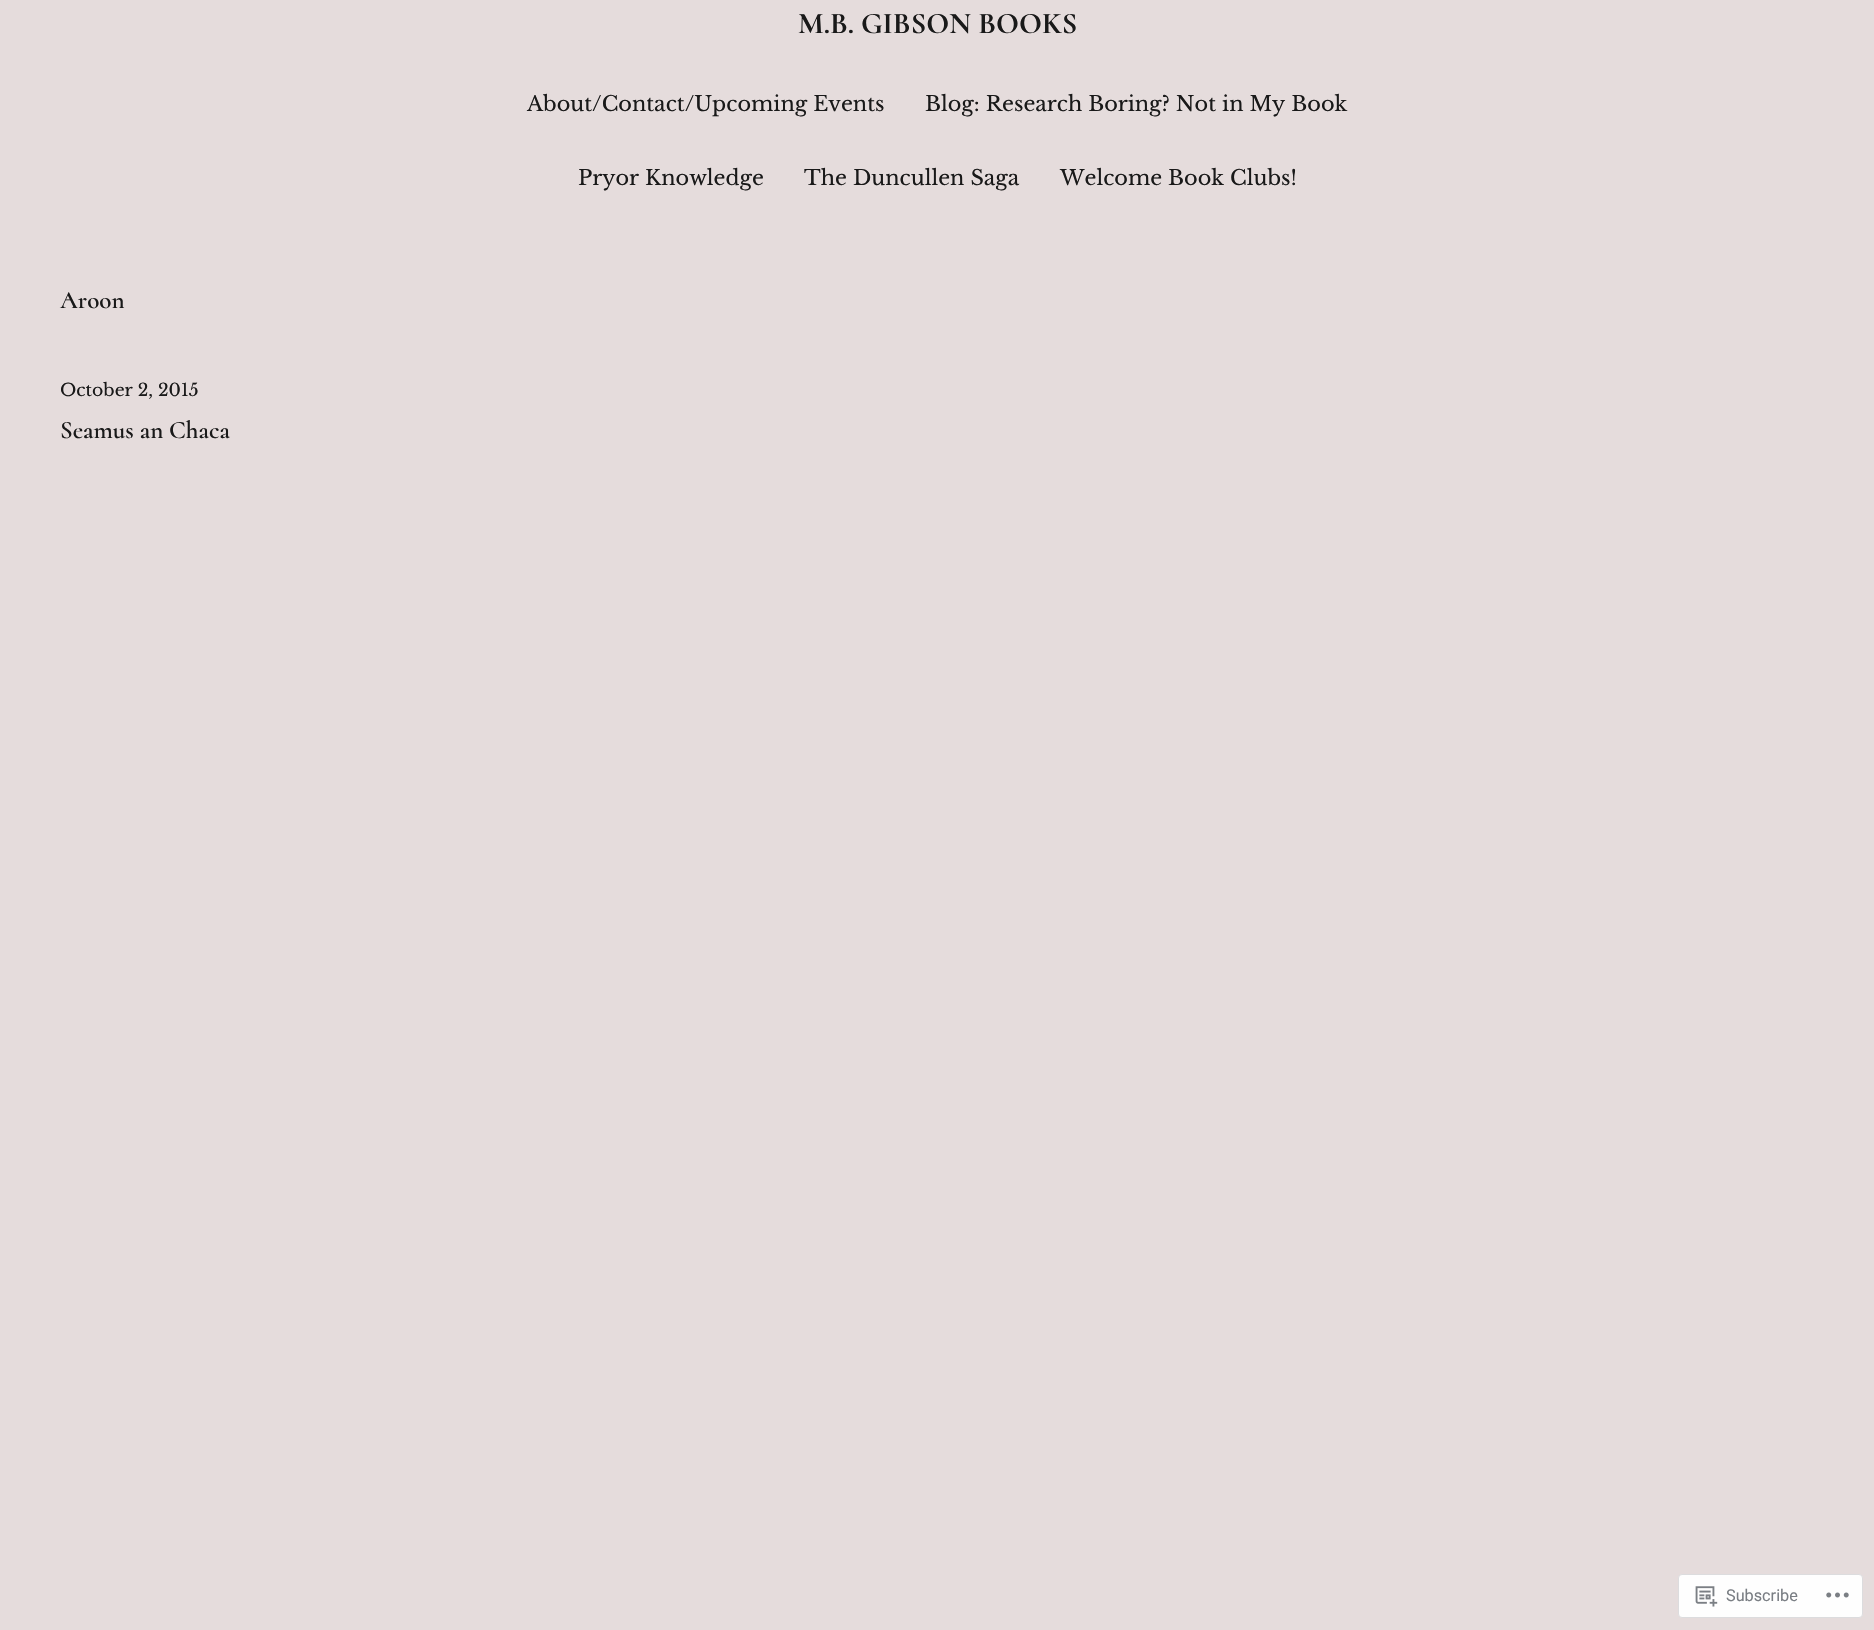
void draw(SkCanvas* canvas) {
	SkPaint paint;
	paint.setAntiAlias(true);
	canvas->clear(0xffe5dcdc);
	SkFont f1(fontMgr->matchFamilyStyle("Cormorant", SkFontStyle::Bold()), 30);
	f1.setSubpixel(true);
	paint.setColor(0xff191919);
	canvas->drawString("M.B. GIBSON BOOKS", 798, 33, f1, paint);
	SkFont f2(fontMgr->matchFamilyStyle("Libre Baskerville", SkFontStyle::Normal()), 20.8);
	f2.setSubpixel(true);
	canvas->drawString("About/Contact/Upcoming Events", 527, 111, f2, paint);
	canvas->drawString("Blog: Research Boring? Not in My Book", 925, 111, f2, paint);
	canvas->drawString("Pryor Knowledge", 578, 185, f2, paint);
	canvas->drawString("The Duncullen Saga", 804, 185, f2, paint);
	canvas->drawString("Welcome Book Clubs!", 1060, 185, f2, paint);
	SkFont f3(fontMgr->matchFamilyStyle("Cormorant", SkFontStyle(600, SkFontStyle::kNormal_Width, SkFontStyle::kUpright_Slant)), 25);
	f3.setSubpixel(true);
	canvas->drawString("Aroon", 60, 308, f3, paint);
	SkFont f4(fontMgr->matchFamilyStyle("Libre Baskerville", SkFontStyle::Normal()), 17.25);
	f4.setSubpixel(true);
	canvas->drawString("October 2, 2015", 60, 396, f4, paint);
	canvas->drawString("Seamus an Chaca", 60, 438, f3, paint);
	paint.setColor(0xfffefefe);
	canvas->drawRoundRect(SkRect::MakeXYWH(1678.5, 1574.5, 184, 43), 3.5, 3.5, paint);
	paint.setStroke(true);
	paint.setStrokeWidth(1);
	paint.setColor(0xffdcdcde);
	canvas->drawRoundRect(SkRect::MakeXYWH(1678.5, 1574.5, 184, 43), 3.5, 3.5, paint);
	canvas->drawImageRect(SkImages::DeferredFromEncodedData(SkData::MakeFromFileName("img1.png")), SkRect::MakeXYWH(1695, 1586, 23, 21), SkSamplingOptions());
	SkFont f5(fontMgr->matchFamilyStyle("Roboto", SkFontStyle::Normal()), 16.25);
	f5.setSubpixel(true);
	paint.setStroke(false);
	paint.setColor(0xff7a7e84);
	canvas->drawString("Subscribe", 1726, 1601, f5, paint);
	canvas->drawImageRect(SkImages::DeferredFromEncodedData(SkData::MakeFromFileName("img2.png")), SkRect::MakeXYWH(1826, 1592, 23, 6), SkSamplingOptions());
}
